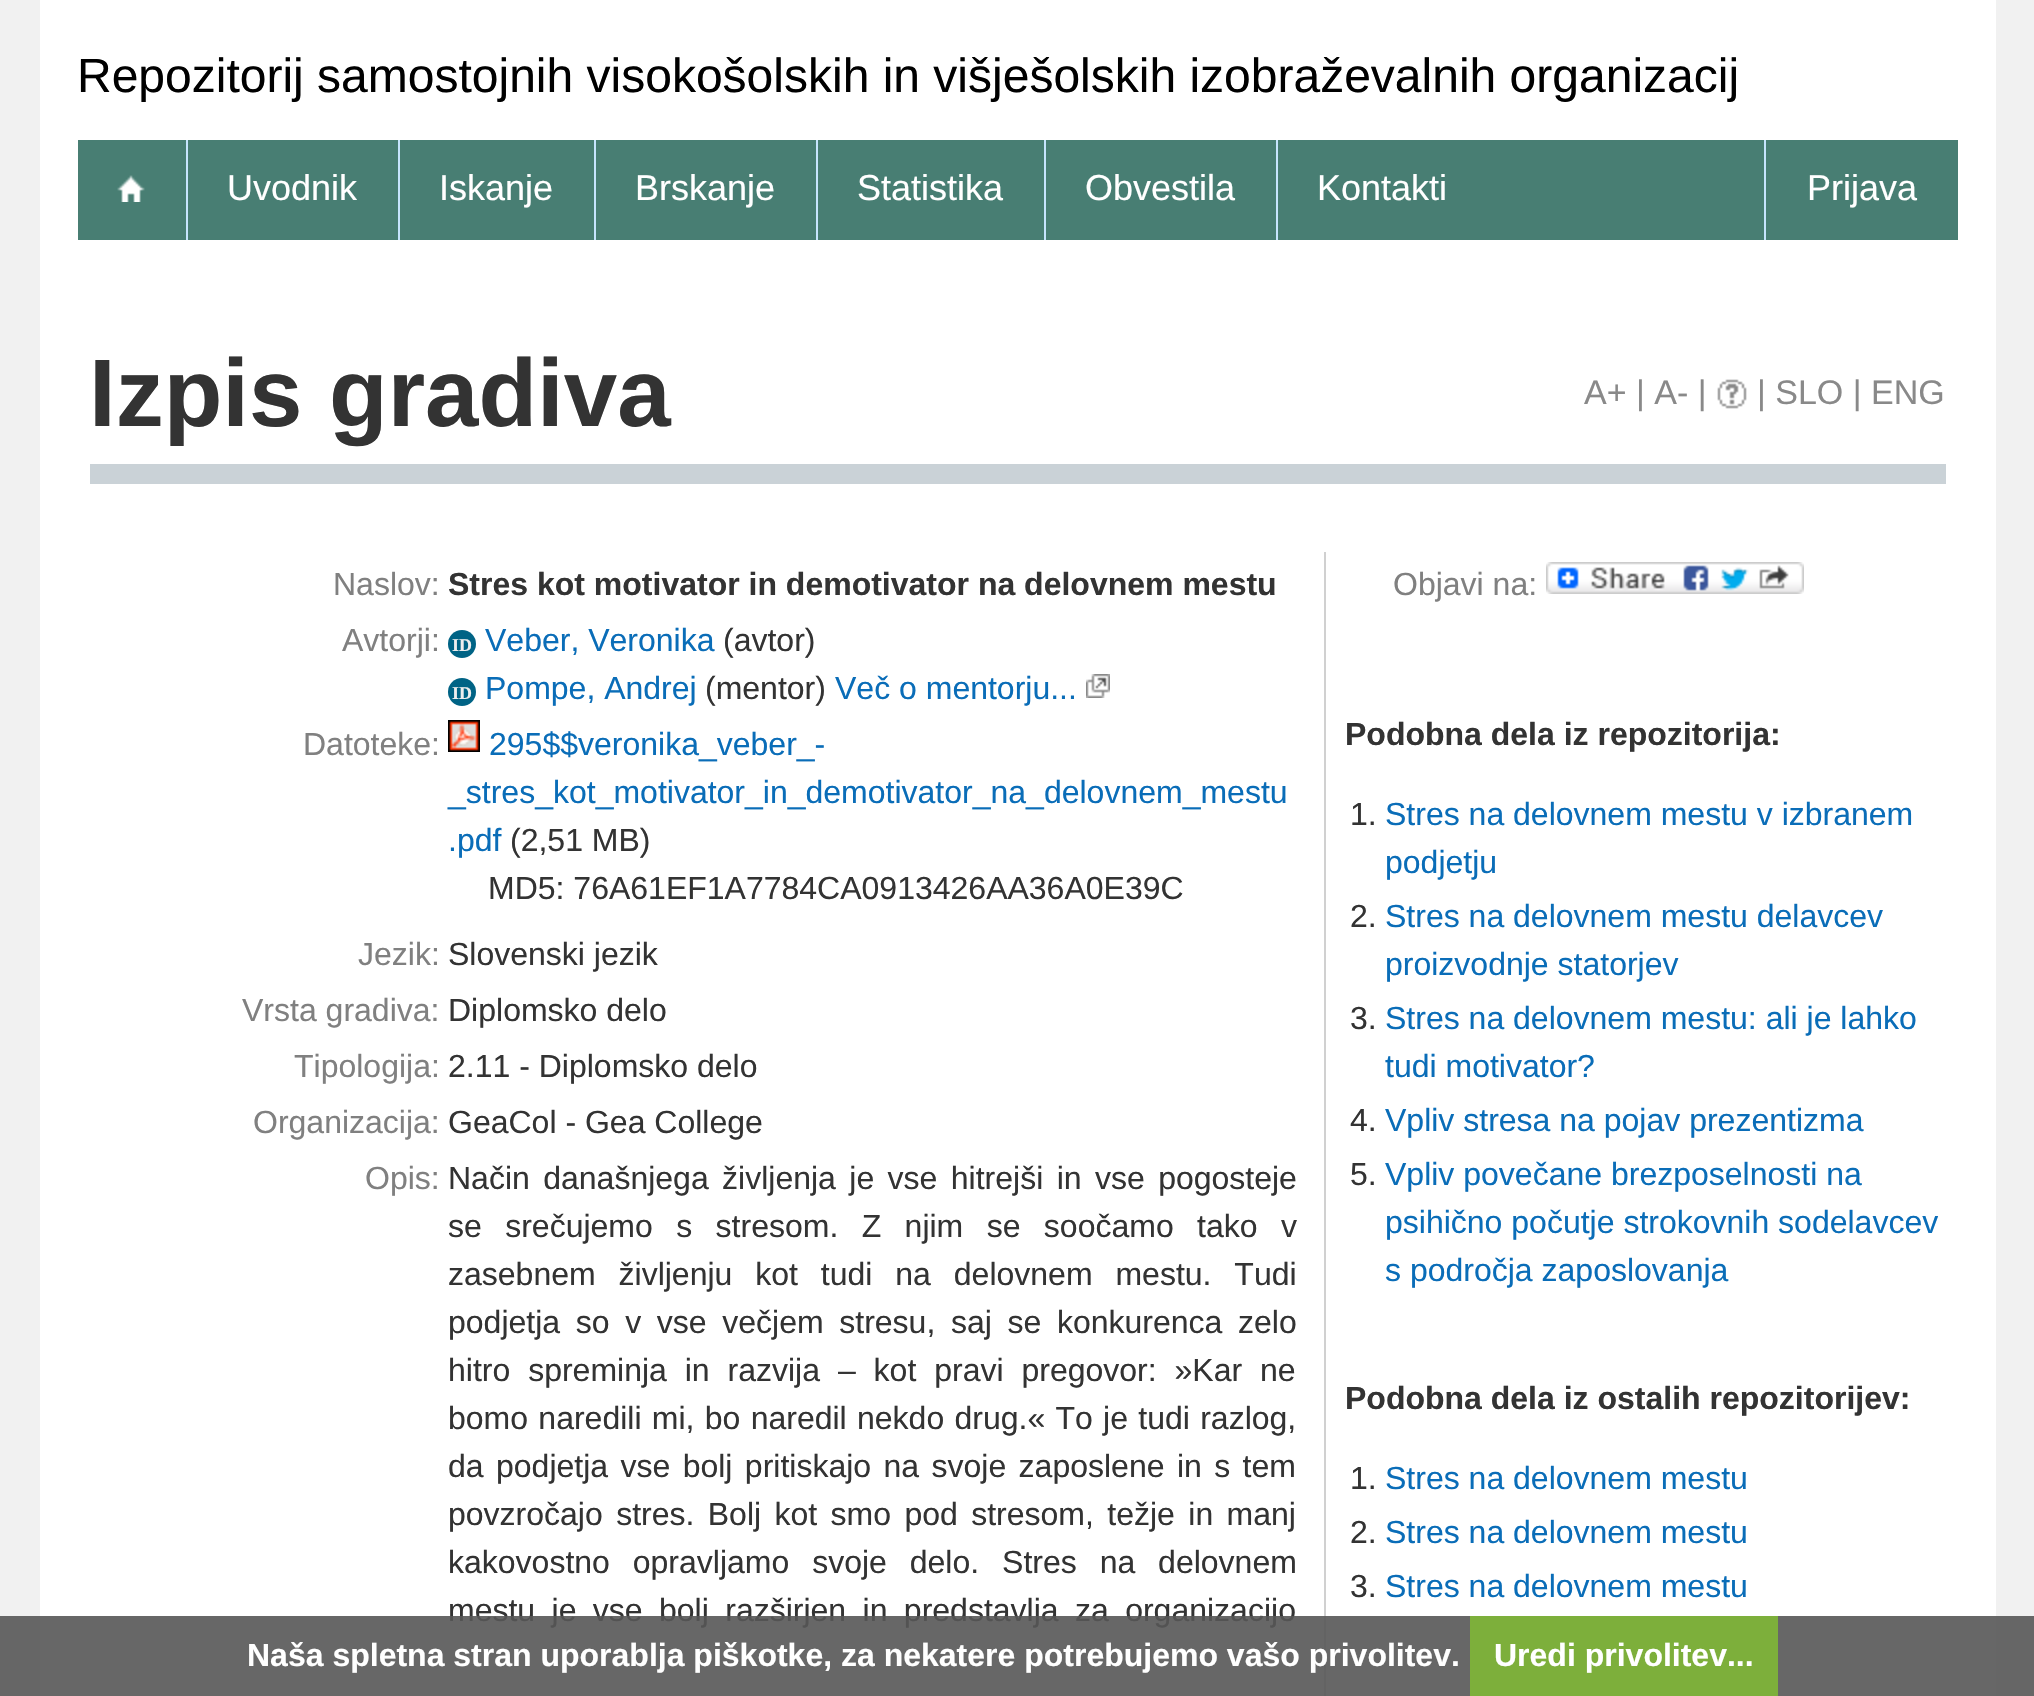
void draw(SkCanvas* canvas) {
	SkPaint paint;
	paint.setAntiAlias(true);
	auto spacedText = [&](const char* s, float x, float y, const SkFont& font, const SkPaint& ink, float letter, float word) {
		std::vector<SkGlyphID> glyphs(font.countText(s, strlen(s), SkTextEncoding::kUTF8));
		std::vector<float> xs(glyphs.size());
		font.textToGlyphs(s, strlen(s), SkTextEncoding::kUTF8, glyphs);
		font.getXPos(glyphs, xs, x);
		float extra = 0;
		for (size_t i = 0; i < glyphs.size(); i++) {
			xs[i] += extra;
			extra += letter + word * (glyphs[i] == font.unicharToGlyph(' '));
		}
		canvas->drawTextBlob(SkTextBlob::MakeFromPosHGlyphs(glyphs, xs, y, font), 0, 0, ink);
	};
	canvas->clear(0xfff1f1f1);
	paint.setColor(0xffffffff);
	canvas->drawRect(SkRect::MakeXYWH(40, 0, 1956, 1696), paint);
	SkFont f1(fontMgr->matchFamilyStyle("Liberation Sans", SkFontStyle::Normal()), 48);
	f1.setSubpixel(true);
	paint.setColor(0xff000000);
	canvas->drawString("Repozitorij samostojnih visokošolskih in višješolskih izobraževalnih organizacij", 77, 92, f1, paint);
	paint.setColor(0xff487e73);
	canvas->drawRect(SkRect::MakeXYWH(78, 140, 1880, 100), paint);
	canvas->drawImageRect(SkImages::DeferredFromEncodedData(SkData::MakeFromFileName("img1.png")), SkRect::MakeXYWH(117, 175, 28, 27), SkSamplingOptions());
	paint.setColor(0xffc6e4fd);
	canvas->drawRect(SkRect::MakeXYWH(186, 140, 2, 100), paint);
	SkFont f2(fontMgr->matchFamilyStyle("Liberation Sans", SkFontStyle::Normal()), 36);
	f2.setSubpixel(true);
	paint.setColor(0xffffffff);
	canvas->drawString("Uvodnik", 227, 200, f2, paint);
	paint.setColor(0xffc6e4fd);
	canvas->drawRect(SkRect::MakeXYWH(398, 140, 2, 100), paint);
	paint.setColor(0xffffffff);
	canvas->drawString("Iskanje", 439, 200, f2, paint);
	paint.setColor(0xffc6e4fd);
	canvas->drawRect(SkRect::MakeXYWH(594, 140, 2, 100), paint);
	paint.setColor(0xffffffff);
	canvas->drawString("Brskanje", 635, 200, f2, paint);
	paint.setColor(0xffc6e4fd);
	canvas->drawRect(SkRect::MakeXYWH(816, 140, 2, 100), paint);
	paint.setColor(0xffffffff);
	canvas->drawString("Statistika", 857, 200, f2, paint);
	paint.setColor(0xffc6e4fd);
	canvas->drawRect(SkRect::MakeXYWH(1044, 140, 2, 100), paint);
	paint.setColor(0xffffffff);
	canvas->drawString("Obvestila", 1085, 200, f2, paint);
	paint.setColor(0xffc6e4fd);
	canvas->drawRect(SkRect::MakeXYWH(1276, 140, 2, 100), paint);
	paint.setColor(0xffffffff);
	canvas->drawString("Kontakti", 1317, 200, f2, paint);
	paint.setColor(0xffc6e4fd);
	canvas->drawRect(SkRect::MakeXYWH(1764, 140, 2, 100), paint);
	paint.setColor(0xffffffff);
	canvas->drawString("Prijava", 1807, 200, f2, paint);
	paint.setColor(0xffcad2d7);
	canvas->drawRect(SkRect::MakeXYWH(90, 464, 1856, 20), paint);
	SkFont f3(fontMgr->matchFamilyStyle("Liberation Sans", SkFontStyle::Bold()), 96);
	f3.setSubpixel(true);
	paint.setColor(0xff333333);
	canvas->drawString("Izpis gradiva", 89, 426, f3, paint);
	SkFont f4(fontMgr->matchFamilyStyle("Liberation Sans", SkFontStyle::Normal()), 34);
	f4.setSubpixel(true);
	paint.setColor(0xff898989);
	canvas->drawString("A+ | A- |", 1584, 404, f4, paint);
	canvas->drawImageRect(SkImages::DeferredFromEncodedData(SkData::MakeFromFileName("img2.png")), SkRect::MakeXYWH(1717, 379, 30, 30), SkSamplingOptions());
	canvas->drawString("| SLO | ENG", 1757, 404, f4, paint);
	SkFont f5(fontMgr->matchFamilyStyle("Liberation Sans", SkFontStyle::Normal()), 32);
	f5.setSubpixel(true);
	paint.setColor(0xff808080);
	canvas->drawString("Naslov:", 333, 595, f5, paint);
	SkFont f6(fontMgr->matchFamilyStyle("Liberation Sans", SkFontStyle::Bold()), 32);
	f6.setSubpixel(true);
	paint.setColor(0xff333333);
	canvas->drawString("Stres kot motivator in demotivator na delovnem mestu", 448, 595, f6, paint);
	paint.setColor(0xff808080);
	canvas->drawString("Avtorji:", 342, 651, f5, paint);
	paint.setColor(0xff006385);
	canvas->drawCircle(462, 644, 14, paint);
	SkFont f7(fontMgr->matchFamilyStyle("Liberation Serif", SkFontStyle::Bold()), 18);
	f7.setSubpixel(true);
	paint.setColor(0xffeeeeee);
	canvas->drawString("ID", 452, 651, f7, paint);
	paint.setColor(0xff0a6db8);
	canvas->drawString("Veber, Veronika", 485, 651, f5, paint);
	paint.setColor(0xff333333);
	canvas->drawString("(avtor)", 723, 651, f5, paint);
	paint.setColor(0xff006385);
	canvas->drawCircle(462, 692, 14, paint);
	paint.setColor(0xffeeeeee);
	canvas->drawString("ID", 452, 699, f7, paint);
	paint.setColor(0xff0a6db8);
	canvas->drawString("Pompe, Andrej", 485, 699, f5, paint);
	paint.setColor(0xff333333);
	canvas->drawString("(mentor)", 705, 699, f5, paint);
	paint.setColor(0xff0a6db8);
	canvas->drawString("Več o mentorju...", 835, 699, f5, paint);
	canvas->drawImageRect(SkImages::DeferredFromEncodedData(SkData::MakeFromFileName("img3.png")), SkRect::MakeXYWH(1086, 674, 24, 24), SkSamplingOptions());
	paint.setColor(0xff808080);
	canvas->drawString("Datoteke:", 303, 755, f5, paint);
	canvas->drawImageRect(SkImages::DeferredFromEncodedData(SkData::MakeFromFileName("img4.png")), SkRect::MakeXYWH(448, 720, 32, 32), SkSamplingOptions());
	paint.setColor(0xff0a6db8);
	canvas->drawString("295$$veronika_veber_-", 489, 755, f5, paint);
	canvas->drawString("_stres_kot_motivator_in_demotivator_na_delovnem_mestu", 448, 803, f5, paint);
	canvas->drawString(".pdf", 448, 851, f5, paint);
	paint.setColor(0xff333333);
	canvas->drawString("(2,51 MB)", 510, 851, f5, paint);
	canvas->drawString("MD5: 76A61EF1A7784CA0913426AA36A0E39C", 488, 899, f5, paint);
	paint.setColor(0xff808080);
	canvas->drawString("Jezik:", 358, 965, f5, paint);
	paint.setColor(0xff333333);
	canvas->drawString("Slovenski jezik", 448, 965, f5, paint);
	paint.setColor(0xff808080);
	canvas->drawString("Vrsta gradiva:", 242, 1021, f5, paint);
	paint.setColor(0xff333333);
	canvas->drawString("Diplomsko delo", 448, 1021, f5, paint);
	paint.setColor(0xff808080);
	canvas->drawString("Tipologija:", 294, 1077, f5, paint);
	paint.setColor(0xff333333);
	canvas->drawString("2.11 - Diplomsko delo", 448, 1077, f5, paint);
	paint.setColor(0xff808080);
	canvas->drawString("Organizacija:", 253, 1133, f5, paint);
	paint.setColor(0xff333333);
	canvas->drawString("GeaCol - Gea College", 448, 1133, f5, paint);
	paint.setColor(0xff808080);
	canvas->drawString("Opis:", 365, 1189, f5, paint);
	paint.setColor(0xff333333);
	spacedText("Način današnjega življenja je vse hitrejši in vse pogosteje", 448, 1189, f5, paint, 0, 4.5);
	spacedText("se srečujemo s stresom. Z njim se soočamo tako v", 448, 1237, f5, paint, 0, 14.5);
	spacedText("zasebnem življenju kot tudi na delovnem mestu. Tudi", 448, 1285, f5, paint, 0, 14);
	spacedText("podjetja so v vse večjem stresu, saj se konkurenca zelo", 448, 1333, f5, paint, 0, 6.75);
	spacedText("hitro spreminja in razvija – kot pravi pregovor: »Kar ne", 448, 1381, f5, paint, 0, 9);
	spacedText("bomo naredili mi, bo naredil nekdo drug.« To je tudi razlog,", 448, 1429, f5, paint, 0, 1.4);
	spacedText("da podjetja vse bolj pritiskajo na svoje zaposlene in s tem", 448, 1477, f5, paint, 0, 3.5);
	spacedText("povzročajo stres. Bolj kot smo pod stresom, težje in manj", 448, 1525, f5, paint, 0, 4.5);
	spacedText("kakovostno opravljamo svoje delo. Stres na delovnem", 448, 1573, f5, paint, 0, 14);
	spacedText("mestu je vse bolj razširjen in predstavlja za organizacijo", 448, 1621, f5, paint, 0, 7.5);
	paint.setColor(0xffd0d0d0);
	canvas->drawRect(SkRect::MakeXYWH(1324, 552, 2, 1144), paint);
	paint.setColor(0xff808080);
	canvas->drawString("Objavi na:", 1393, 595, f5, paint);
	canvas->drawImageRect(SkImages::DeferredFromEncodedData(SkData::MakeFromFileName("img5.png")), SkRect::MakeXYWH(1546, 562, 258, 32), SkSamplingOptions());
	paint.setColor(0xff333333);
	canvas->drawString("Podobna dela iz repozitorija:", 1345, 745, f6, paint);
	canvas->drawString("1.", 1350, 825, f5, paint);
	paint.setColor(0xff0a6db8);
	canvas->drawString("Stres na delovnem mestu v izbranem", 1385, 825, f5, paint);
	canvas->drawString("podjetju", 1385, 873, f5, paint);
	paint.setColor(0xff333333);
	canvas->drawString("2.", 1350, 927, f5, paint);
	paint.setColor(0xff0a6db8);
	canvas->drawString("Stres na delovnem mestu delavcev", 1385, 927, f5, paint);
	canvas->drawString("proizvodnje statorjev", 1385, 975, f5, paint);
	paint.setColor(0xff333333);
	canvas->drawString("3.", 1350, 1029, f5, paint);
	paint.setColor(0xff0a6db8);
	canvas->drawString("Stres na delovnem mestu: ali je lahko", 1385, 1029, f5, paint);
	canvas->drawString("tudi motivator?", 1385, 1077, f5, paint);
	paint.setColor(0xff333333);
	canvas->drawString("4.", 1350, 1131, f5, paint);
	paint.setColor(0xff0a6db8);
	canvas->drawString("Vpliv stresa na pojav prezentizma", 1385, 1131, f5, paint);
	paint.setColor(0xff333333);
	canvas->drawString("5.", 1350, 1185, f5, paint);
	paint.setColor(0xff0a6db8);
	canvas->drawString("Vpliv povečane brezposelnosti na", 1385, 1185, f5, paint);
	canvas->drawString("psihično počutje strokovnih sodelavcev", 1385, 1233, f5, paint);
	canvas->drawString("s področja zaposlovanja", 1385, 1281, f5, paint);
	paint.setColor(0xff333333);
	canvas->drawString("Podobna dela iz ostalih repozitorijev:", 1345, 1409, f6, paint);
	canvas->drawString("1.", 1350, 1489, f5, paint);
	paint.setColor(0xff0a6db8);
	canvas->drawString("Stres na delovnem mestu", 1385, 1489, f5, paint);
	paint.setColor(0xff333333);
	canvas->drawString("2.", 1350, 1543, f5, paint);
	paint.setColor(0xff0a6db8);
	canvas->drawString("Stres na delovnem mestu", 1385, 1543, f5, paint);
	paint.setColor(0xff333333);
	canvas->drawString("3.", 1350, 1597, f5, paint);
	paint.setColor(0xff0a6db8);
	canvas->drawString("Stres na delovnem mestu", 1385, 1597, f5, paint);
	paint.setColor(0xe6565656);
	canvas->drawRect(SkRect::MakeXYWH(0, 1616, 2034, 80), paint);
	paint.setColor(0xffffffff);
	canvas->drawString("Naša spletna stran uporablja piškotke, za nekatere potrebujemo vašo privolitev.", 247, 1666, f6, paint);
	paint.setColor(0xff7daf3b);
	canvas->drawRect(SkRect::MakeXYWH(1470, 1616, 308, 80), paint);
	paint.setColor(0xffffffff);
	canvas->drawString("Uredi privolitev...", 1494, 1666, f6, paint);
}
